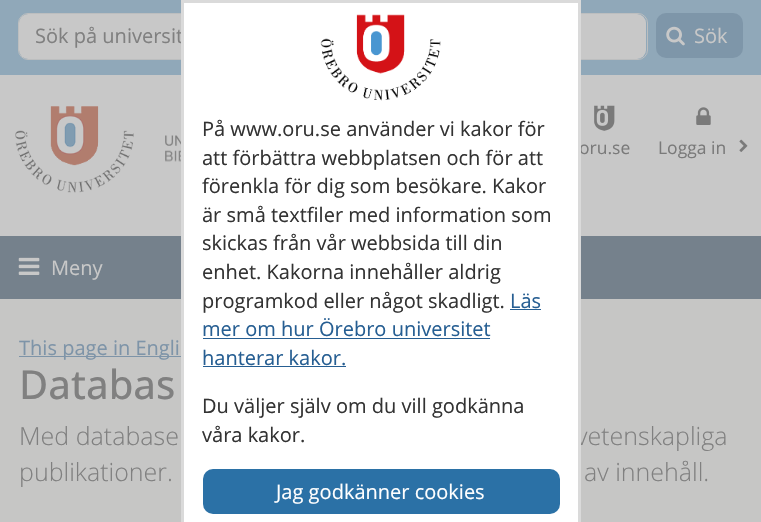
void draw(SkCanvas* canvas) {
	SkPaint paint;
	paint.setAntiAlias(true);
	canvas->clear(0xffc6c6c5);
	paint.setColor(0xffc8c8c8);
	canvas->drawRect(SkRect::MakeXYWH(0, 75, 761, 161), paint);
	paint.setColor(0xff90a8b9);
	canvas->drawRect(SkRect::MakeXYWH(0, 0, 761, 75), paint);
	paint.setColor(0xffc8c8c8);
	canvas->drawRoundRect(SkRect::MakeXYWH(19, 14, 627, 45), 9, 9, paint);
	paint.setStroke(true);
	paint.setStrokeWidth(1);
	paint.setColor(0xffbcbebf);
	canvas->drawRoundRect(SkRect::MakeXYWH(18.5, 13.5, 629, 46), 9.5, 9.5, paint);
	SkFont f1(fontMgr->matchFamilyStyle("Open Sans", SkFontStyle::Normal()), 20);
	f1.setSubpixel(true);
	paint.setStroke(false);
	paint.setColor(0xff808080);
	canvas->drawString("Sök på universit", 35, 43, f1, paint);
	paint.setColor(0xff7e96a9);
	canvas->drawRoundRect(SkRect::MakeXYWH(656, 13, 87, 45), 10, 10, paint);
	canvas->drawImageRect(SkImages::DeferredFromEncodedData(SkData::MakeFromFileName("img1.png")), SkRect::MakeXYWH(666, 26, 19, 20), SkSamplingOptions());
	paint.setColor(0xffc8c8c8);
	canvas->drawString("Sök", 694, 43, f1, paint);
	paint.setColor(0xff75818c);
	canvas->drawRect(SkRect::MakeXYWH(0, 236, 761, 63), paint);
	SkFont f2(fontMgr->matchFamilyStyle("Open Sans", SkFontStyle(300, SkFontStyle::kNormal_Width, SkFontStyle::kUpright_Slant)), 25);
	f2.setSubpixel(true);
	paint.setColor(0xff808080);
	canvas->drawString("vetenskapliga", 576, 445, f2, paint);
	paint.setColor(0xffffffff);
	canvas->drawRect(SkRect::MakeXYWH(184, 3, 394, 519), paint);
	canvas->drawImageRect(SkImages::DeferredFromEncodedData(SkData::MakeFromFileName("img2.png")), SkRect::MakeXYWH(320, 14, 121, 87), SkSamplingOptions());
	SkFont f3(fontMgr->matchFamilyStyle("Open Sans", SkFontStyle::Normal()), 17.5);
	f3.setSubpixel(true);
	paint.setColor(0xff7a7a7a);
	canvas->drawString("oru.se", 579, 154, f3, paint);
	paint.setStroke(true);
	paint.setStrokeWidth(3);
	paint.setColor(0xffdadada);
	canvas->drawRect(SkRect::MakeXYWH(182.5, 1.5, 397, 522), paint);
	paint.setStroke(false);
	paint.setColor(0xff333333);
	canvas->drawString("På www.oru.se använder vi kakor för", 202, 136, f1, paint);
	canvas->drawString("att förbättra webbplatsen och för att", 202, 165, f1, paint);
	canvas->drawString("förenkla för dig som besökare. Kakor", 202, 193, f1, paint);
	canvas->drawString("är små textfiler med information som", 202, 222, f1, paint);
	canvas->drawString("skickas från vår webbsida till din", 202, 250, f1, paint);
	canvas->drawString("enhet. Kakorna innehåller aldrig", 202, 279, f1, paint);
	canvas->drawString("programkod eller något skadligt.", 202, 308, f1, paint);
	paint.setColor(0xff265e92);
	canvas->drawString("Läs", 510, 308, f1, paint);
	canvas->drawRect(SkRect::MakeXYWH(510, 309, 31, 1), paint);
	canvas->drawString("mer om hur Örebro universitet", 202, 336, f1, paint);
	canvas->drawRect(SkRect::MakeXYWH(203, 338, 287, 1), paint);
	canvas->drawString("hanterar kakor.", 202, 365, f1, paint);
	canvas->drawRect(SkRect::MakeXYWH(203, 366, 143, 1), paint);
	paint.setColor(0xff333333);
	canvas->drawString("Du väljer själv om du vill godkänna", 202, 413, f1, paint);
	canvas->drawString("våra kakor.", 202, 442, f1, paint);
	paint.setColor(0xff2b71a6);
	canvas->drawRoundRect(SkRect::MakeXYWH(203, 469, 357, 45), 10, 10, paint);
	paint.setColor(0xffffffff);
	canvas->drawString("Jag godkänner cookies", 276, 499, f1, paint);
	canvas->drawImageRect(SkImages::DeferredFromEncodedData(SkData::MakeFromFileName("img3.png")), SkRect::MakeXYWH(15, 106, 119, 87), SkSamplingOptions());
	canvas->drawImageRect(SkImages::DeferredFromEncodedData(SkData::MakeFromFileName("img4.png")), SkRect::MakeXYWH(165, 135, 16, 27), SkSamplingOptions());
	canvas->drawImageRect(SkImages::DeferredFromEncodedData(SkData::MakeFromFileName("img5.png")), SkRect::MakeXYWH(594, 105, 21, 26), SkSamplingOptions());
	canvas->drawImageRect(SkImages::DeferredFromEncodedData(SkData::MakeFromFileName("img6.png")), SkRect::MakeXYWH(696, 107, 15, 18), SkSamplingOptions());
	paint.setColor(0xff7a7a7a);
	canvas->drawString("Logga in", 658, 154, f3, paint);
	canvas->drawImageRect(SkImages::DeferredFromEncodedData(SkData::MakeFromFileName("img7.png")), SkRect::MakeXYWH(739, 139, 9, 13), SkSamplingOptions());
	canvas->drawImageRect(SkImages::DeferredFromEncodedData(SkData::MakeFromFileName("img8.png")), SkRect::MakeXYWH(18, 257, 22, 18), SkSamplingOptions());
	paint.setColor(0xffc8c8c8);
	canvas->drawString("Meny", 51, 275, f1, paint);
	paint.setColor(0xff7e94a8);
	canvas->drawRect(SkRect::MakeXYWH(19, 356, 162, 1), paint);
	canvas->drawString("This page in Engli", 19, 355, f1, paint);
	SkFont f4(fontMgr->matchFamilyStyle("Open Sans", SkFontStyle(500, SkFontStyle::kNormal_Width, SkFontStyle::kUpright_Slant)), 40);
	f4.setSubpixel(true);
	paint.setColor(0xff808080);
	canvas->drawString("Databas", 19, 399, f4, paint);
	canvas->drawString("Med database", 19, 445, f2, paint);
	canvas->drawString("publikationer.", 19, 481, f2, paint);
	canvas->drawString("av innehåll.", 584, 481, f2, paint);
}
